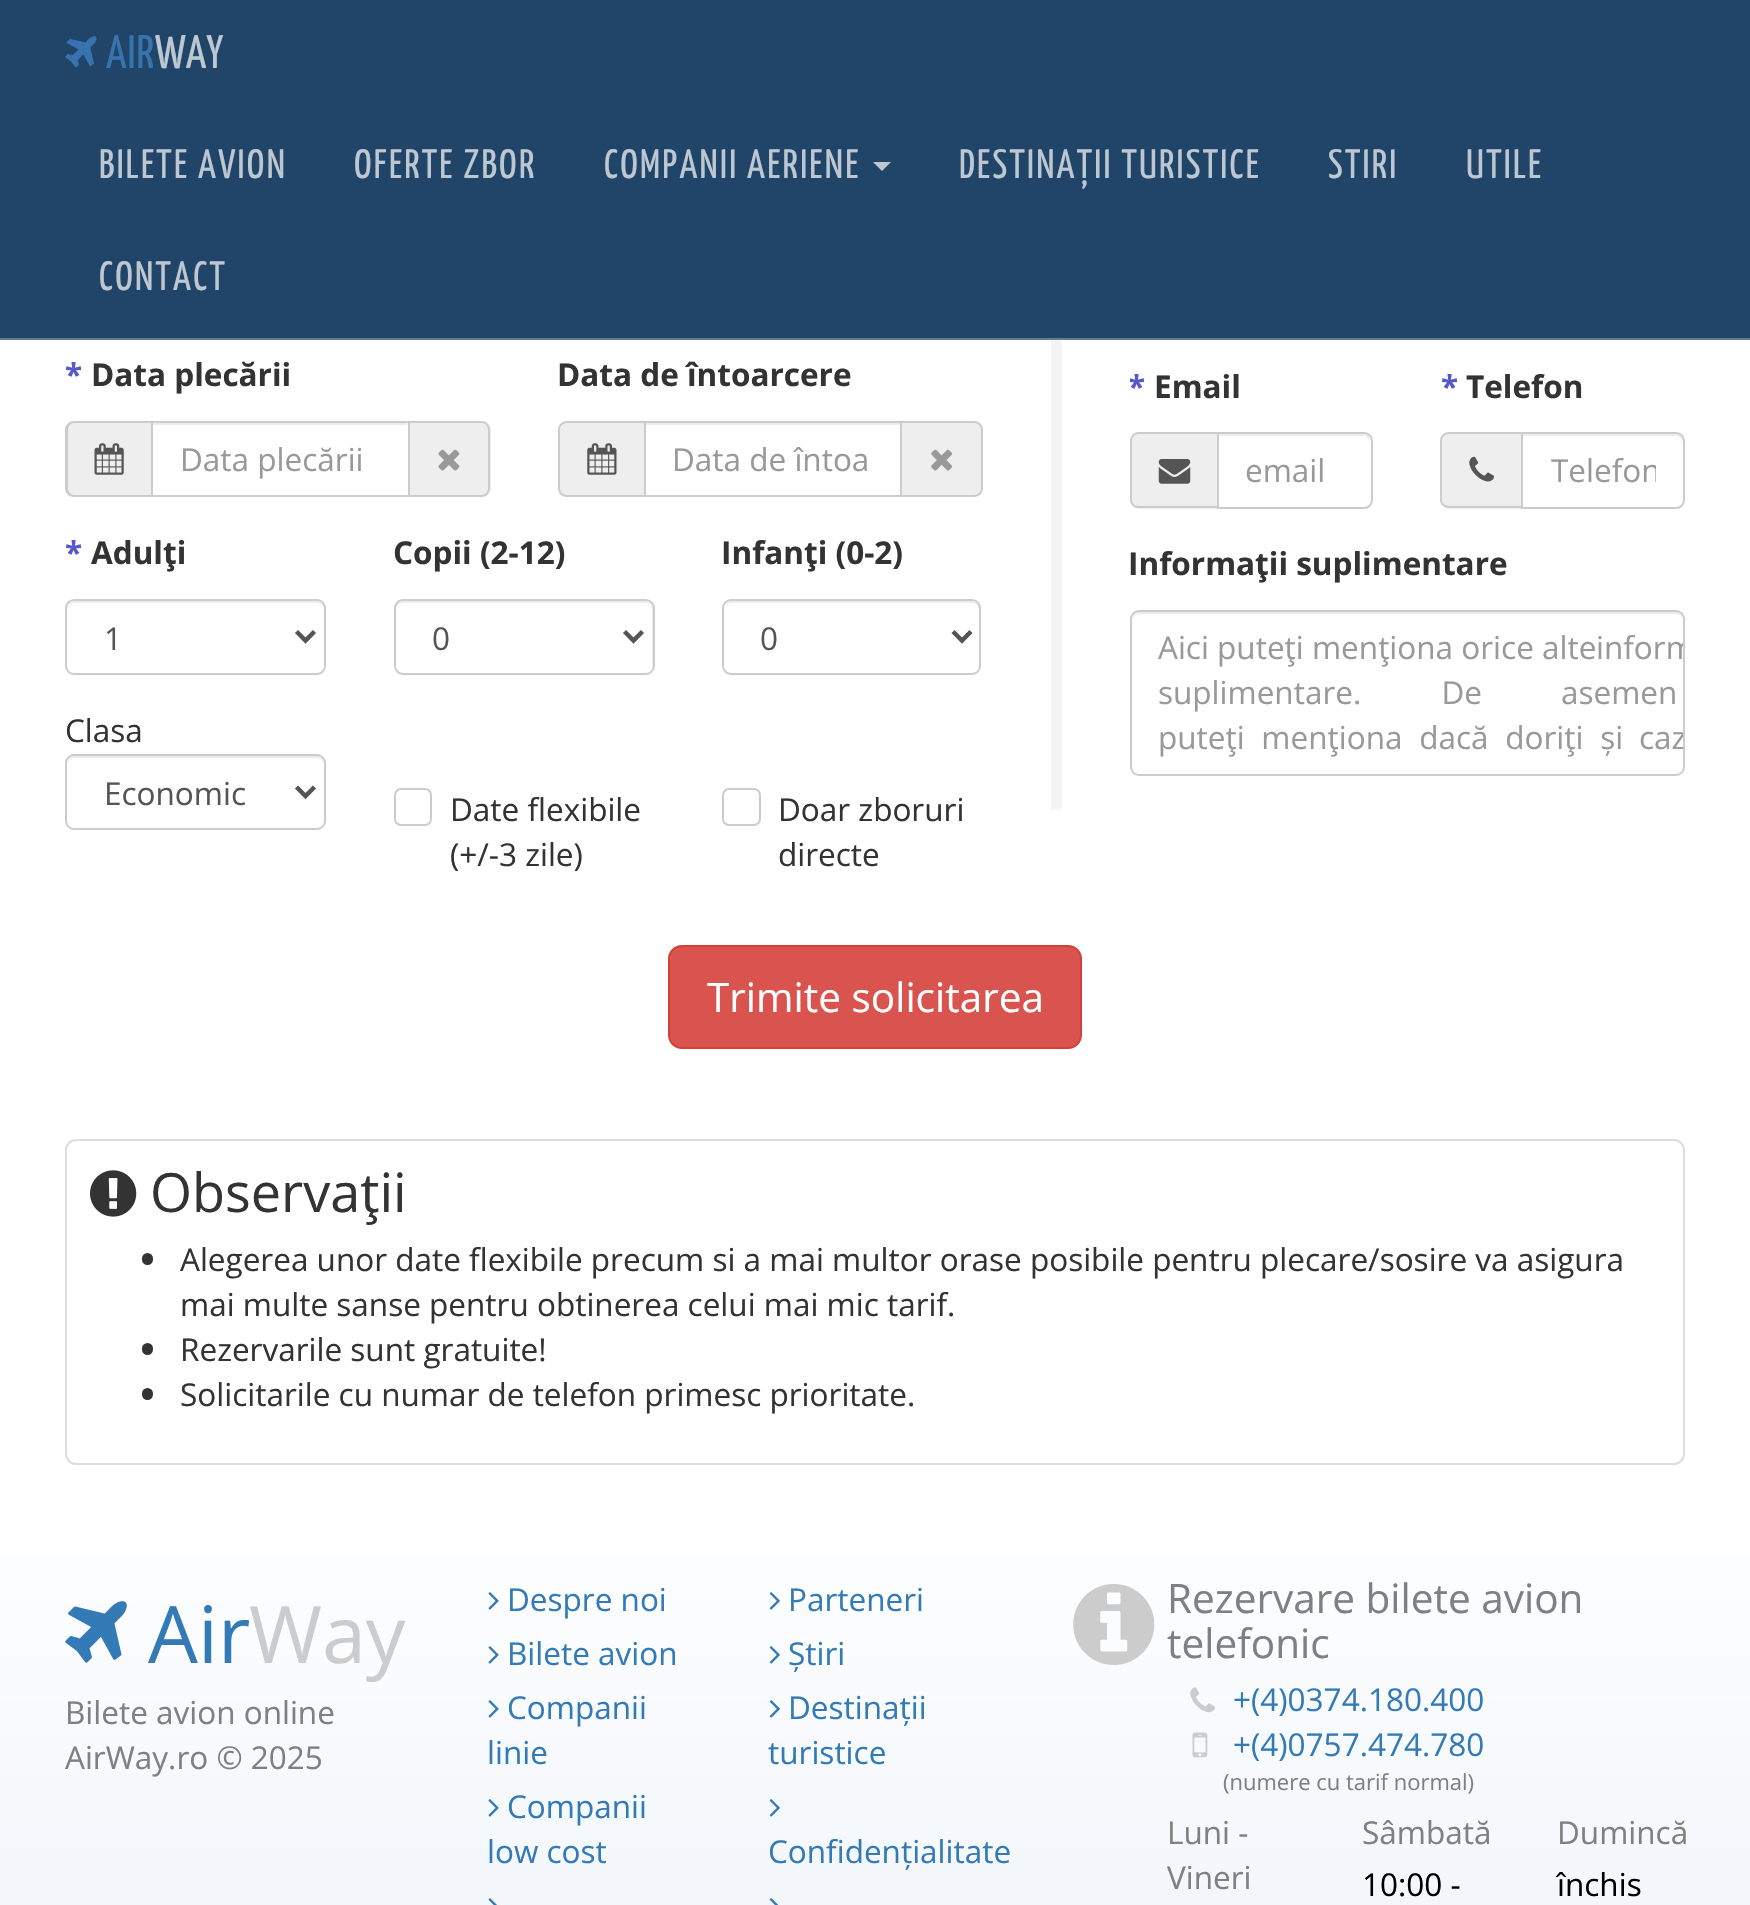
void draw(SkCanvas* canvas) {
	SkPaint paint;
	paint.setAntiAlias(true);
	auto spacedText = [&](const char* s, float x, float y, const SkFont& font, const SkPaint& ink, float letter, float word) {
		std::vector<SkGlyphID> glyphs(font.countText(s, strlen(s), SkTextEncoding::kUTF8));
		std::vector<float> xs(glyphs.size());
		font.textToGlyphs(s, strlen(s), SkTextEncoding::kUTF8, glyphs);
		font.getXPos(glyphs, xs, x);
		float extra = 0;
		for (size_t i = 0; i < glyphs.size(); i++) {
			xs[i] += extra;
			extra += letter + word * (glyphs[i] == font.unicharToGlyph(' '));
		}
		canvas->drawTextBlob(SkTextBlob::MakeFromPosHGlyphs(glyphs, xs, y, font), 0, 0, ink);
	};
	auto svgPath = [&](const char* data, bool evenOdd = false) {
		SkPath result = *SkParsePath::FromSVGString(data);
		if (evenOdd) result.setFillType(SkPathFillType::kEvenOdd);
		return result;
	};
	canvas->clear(0xffffffff);
	paint.setColor(0xff214568);
	canvas->drawRect(SkRect::MakeXYWH(0, 0, 1750, 338), paint);
	paint.setColor(0xff647d95);
	canvas->drawRect(SkRect::MakeXYWH(0, 338, 1750, 2), paint);
	canvas->drawImageRect(SkImages::DeferredFromEncodedData(SkData::MakeFromFileName("img1.png")), SkRect::MakeXYWH(65, 36, 32, 32), SkSamplingOptions());
	SkFont f1(fontMgr->matchFamilyStyle("Yanone Kaffeesatz", SkFontStyle(200, SkFontStyle::kNormal_Width, SkFontStyle::kUpright_Slant)), 47);
	f1.setSubpixel(true);
	paint.setColor(0xff3773ae);
	spacedText("AIR", 106, 68, f1, paint, 1, 0);
	paint.setColor(0xffbcc7d2);
	canvas->drawString("WAY", 155, 68, f1, paint);
	SkFont f2(fontMgr->matchFamilyStyle("Yanone Kaffeesatz", SkFontStyle(200, SkFontStyle::kNormal_Width, SkFontStyle::kUpright_Slant)), 41);
	f2.setSubpixel(true);
	spacedText("BILETE AVION", 99, 178, f2, paint, 2.25, 0);
	spacedText("OFERTE ZBOR", 354, 178, f2, paint, 2.25, 0);
	spacedText("COMPANII AERIENE", 604, 178, f2, paint, 2.25, 0);
	canvas->drawPath(svgPath("M873 162H891L882 171Z"), paint);
	spacedText("DESTINAȚII TURISTICE", 959, 178, f2, paint, 2.25, 0);
	spacedText("STIRI", 1328, 178, f2, paint, 2.25, 0);
	spacedText("UTILE", 1466, 178, f2, paint, 2.25, 0);
	spacedText("CONTACT", 99, 290, f2, paint, 2.25, 0);
	SkFont f3(fontMgr->matchFamilyStyle("Open Sans", SkFontStyle::Bold()), 31.5);
	f3.setSubpixel(true);
	paint.setColor(0xff5658c8);
	canvas->drawString("*", 65, 386, f3, paint);
	paint.setColor(0xff333333);
	canvas->drawString("Data plecării", 91, 386, f3, paint);
	paint.setColor(0xffeeeeee);
	canvas->drawPath(svgPath("M74 421H151V497H74C69 497 65 493 65 488V430C65 425 69 421 74 421Z"), paint);
	paint.setColor(0xffcccccc);
	canvas->drawPath(svgPath("M74 421H151V497H74C69 497 65 493 65 488V430C65 425 69 421 74 421ZM74 423H151V495H74C71 495 68 492 68 488V430C68 426 71 423 74 423Z", true), paint);
	canvas->drawImageRect(SkImages::DeferredFromEncodedData(SkData::MakeFromFileName("img2.png")), SkRect::MakeXYWH(94, 443, 30, 32), SkSamplingOptions());
	paint.setColor(0xffececec);
	canvas->drawRect(SkRect::MakeXYWH(153, 423, 254, 2), paint);
	paint.setStroke(true);
	paint.setStrokeWidth(2);
	paint.setColor(0xffcccccc);
	canvas->drawRect(SkRect::MakeXYWH(152, 422, 257, 74), paint);
	SkFont f4(fontMgr->matchFamilyStyle("Open Sans", SkFontStyle::Normal()), 31.5);
	f4.setSubpixel(true);
	paint.setStroke(false);
	paint.setColor(0xff999999);
	canvas->drawString("Data plecării", 180, 471, f4, paint);
	paint.setColor(0xffeeeeee);
	canvas->drawPath(svgPath("M410 421H482C487 421 491 425 491 430V488C491 493 487 497 482 497H410Z"), paint);
	paint.setColor(0xffcccccc);
	canvas->drawPath(svgPath("M410 421H482C486 421 490 425 490 430V488C490 493 486 497 482 497H410ZM410 423H482C485 423 488 426 488 430V488C488 492 485 495 482 495H410Z", true), paint);
	canvas->drawImageRect(SkImages::DeferredFromEncodedData(SkData::MakeFromFileName("img3.png")), SkRect::MakeXYWH(438, 449, 22, 22), SkSamplingOptions());
	paint.setColor(0xff333333);
	canvas->drawString("Data de întoarcere", 557, 386, f3, paint);
	paint.setColor(0xffeeeeee);
	canvas->drawPath(svgPath("M567 421H644V497H567C562 497 558 493 558 488V430C558 425 562 421 567 421Z"), paint);
	paint.setColor(0xffcccccc);
	canvas->drawPath(svgPath("M567 421H644V497H567C562 497 558 493 558 488V430C558 425 562 421 567 421ZM567 423H644V495H567C563 495 560 492 560 488V430C560 426 563 423 567 423Z", true), paint);
	canvas->drawImageRect(SkImages::DeferredFromEncodedData(SkData::MakeFromFileName("img4.png")), SkRect::MakeXYWH(587, 443, 30, 32), SkSamplingOptions());
	paint.setColor(0xffececec);
	canvas->drawRect(SkRect::MakeXYWH(646, 423, 254, 2), paint);
	paint.setStroke(true);
	paint.setColor(0xffcccccc);
	canvas->drawRect(SkRect::MakeXYWH(645, 422, 256, 74), paint);
	paint.setStroke(false);
	paint.setColor(0xff999999);
	canvas->drawString("Data de întoa", 672, 471, f4, paint);
	paint.setColor(0xffeeeeee);
	canvas->drawPath(svgPath("M902 421H974C979 421 983 425 983 430V488C983 493 979 497 974 497H902Z"), paint);
	paint.setColor(0xffcccccc);
	canvas->drawPath(svgPath("M902 421H974C979 421 983 425 983 430V488C983 493 979 497 974 497H902ZM902 423H974C978 423 981 426 981 430V488C981 492 978 495 974 495H902Z", true), paint);
	canvas->drawImageRect(SkImages::DeferredFromEncodedData(SkData::MakeFromFileName("img5.png")), SkRect::MakeXYWH(931, 449, 21, 22), SkSamplingOptions());
	paint.setColor(0xff5658c8);
	canvas->drawString("*", 65, 564, f3, paint);
	paint.setColor(0xff333333);
	canvas->drawString("Adulţi", 91, 564, f3, paint);
	paint.setColor(0xffececec);
	canvas->drawPath(svgPath("M74 603H317C321 603 324 606 324 610V608C324 604 321 601 317 601H75C71 601 68 604 68 608V610C68 606 71 603 74 603Z"), paint);
	paint.setStroke(true);
	paint.setColor(0xffcccccc);
	canvas->drawRoundRect(SkRect::MakeXYWH(66, 600, 259, 74), 8, 8, paint);
	paint.setStrokeWidth(4.5);
	paint.setColor(0xff555555);
	canvas->drawPath(svgPath("M296.5 631.5L305.5 640.5L314.5 631.5"), paint);
	paint.setStroke(false);
	canvas->drawString("1", 104, 650, f4, paint);
	paint.setColor(0xff333333);
	canvas->drawString("Copii (2-12)", 393, 564, f3, paint);
	paint.setColor(0xffececec);
	canvas->drawPath(svgPath("M403 603H646C649 603 652 606 652 610V670C653 669 653 667 653 666V608C653 604 650 601 646 601H403C399 601 396 604 396 608V610C396 606 399 603 403 603Z"), paint);
	paint.setStroke(true);
	paint.setStrokeWidth(2);
	paint.setColor(0xffcccccc);
	canvas->drawRoundRect(SkRect::MakeXYWH(395, 600, 259, 74), 8, 8, paint);
	paint.setStrokeWidth(4.5);
	paint.setColor(0xff555555);
	canvas->drawPath(svgPath("M624.5 631.5L633.5 640.5L642.5 631.5"), paint);
	paint.setStroke(false);
	canvas->drawString("0", 432, 650, f4, paint);
	paint.setColor(0xff333333);
	canvas->drawString("Infanţi (0-2)", 721, 564, f3, paint);
	paint.setColor(0xffececec);
	canvas->drawPath(svgPath("M731 603H972C976 603 979 606 979 610V608C979 604 976 601 972 601H732C729 601 726 603 725 606C727 604 729 603 731 603Z"), paint);
	paint.setStroke(true);
	paint.setStrokeWidth(2);
	paint.setColor(0xffcccccc);
	canvas->drawRoundRect(SkRect::MakeXYWH(723, 600, 257, 74), 8, 8, paint);
	paint.setStrokeWidth(4.5);
	paint.setColor(0xff555555);
	canvas->drawPath(svgPath("M953 631.5L962 640.5L971 631.5"), paint);
	paint.setStroke(false);
	canvas->drawString("0", 760, 650, f4, paint);
	paint.setColor(0xff333333);
	canvas->drawString("Clasa", 65, 742, f4, paint);
	paint.setColor(0xffececec);
	canvas->drawPath(svgPath("M74 758H317C321 758 324 761 324 765V763C324 759 321 756 317 756H75C71 756 68 759 68 763V765C68 761 71 758 74 758Z"), paint);
	paint.setStroke(true);
	paint.setStrokeWidth(2);
	paint.setColor(0xffcccccc);
	canvas->drawRoundRect(SkRect::MakeXYWH(66, 755, 259, 74), 8, 8, paint);
	paint.setStrokeWidth(4.5);
	paint.setColor(0xff555555);
	canvas->drawPath(svgPath("M296.5 787L305.5 796L314.5 787"), paint);
	paint.setStroke(false);
	canvas->drawString("Economic", 104, 805, f4, paint);
	paint.setStroke(true);
	paint.setStrokeWidth(2);
	paint.setColor(0xffcccccc);
	canvas->drawRoundRect(SkRect::MakeXYWH(395, 789, 36, 36), 6, 6, paint);
	paint.setStroke(false);
	paint.setColor(0xff333333);
	canvas->drawString("Date flexibile", 450, 821, f4, paint);
	canvas->drawString("(+/-3 zile)", 450, 866, f4, paint);
	paint.setStroke(true);
	paint.setColor(0xffcccccc);
	canvas->drawRoundRect(SkRect::MakeXYWH(723, 789, 37, 36), 6, 6, paint);
	paint.setStroke(false);
	paint.setColor(0xff333333);
	canvas->drawString("Doar zboruri", 778, 821, f4, paint);
	canvas->drawString("directe", 778, 866, f4, paint);
	paint.setColor(0xfff4f4f4);
	canvas->drawRect(SkRect::MakeXYWH(1051, 340, 11, 470), paint);
	canvas->save();
	canvas->clipRect(SkRect::MakeXYWH(1130, 365, 110, 45));
	paint.setColor(0xff5658c8);
	canvas->drawString("*", 1128, 398, f3, paint);
	canvas->restore();
	paint.setColor(0xff333333);
	canvas->drawString("Email", 1154, 398, f3, paint);
	paint.setColor(0xffeeeeee);
	canvas->drawPath(svgPath("M1139 432H1217V509H1139C1134 509 1130 505 1130 500V441C1130 436 1134 432 1139 432Z"), paint);
	paint.setColor(0xffcccccc);
	canvas->drawPath(svgPath("M1138 432H1217V508H1138C1134 508 1130 504 1130 500V441C1130 436 1134 432 1138 432ZM1138 434H1217V506H1138C1135 506 1132 503 1132 500V441C1132 437 1135 434 1138 434Z", true), paint);
	canvas->drawImageRect(SkImages::DeferredFromEncodedData(SkData::MakeFromFileName("img6.png")), SkRect::MakeXYWH(1158, 459, 33, 25), SkSamplingOptions());
	paint.setColor(0xffececec);
	canvas->drawPath(svgPath("M1220 436H1364C1367 436 1370 440 1370 443V441C1370 437 1367 434 1363 434H1220Z"), paint);
	paint.setStroke(true);
	paint.setColor(0xffcccccc);
	canvas->drawPath(svgPath("M1218 433H1364C1368.5 433 1372 436.5 1372 441V500C1372 504.5 1368.5 508 1364 508H1218Z"), paint);
	paint.setStroke(false);
	paint.setColor(0xff999999);
	canvas->drawString("email", 1245, 482, f4, paint);
	paint.setColor(0xff5658c8);
	canvas->drawString("*", 1441, 398, f3, paint);
	paint.setColor(0xff333333);
	canvas->drawString("Telefon", 1466, 398, f3, paint);
	paint.setColor(0xffeeeeee);
	canvas->drawPath(svgPath("M1449 432H1521V509H1449C1444 509 1440 505 1440 500V441C1440 436 1444 432 1449 432Z"), paint);
	paint.setColor(0xffcccccc);
	canvas->drawPath(svgPath("M1449 432H1521V508H1449C1444 508 1440 504 1440 500V441C1440 436 1444 432 1449 432ZM1449 434H1521V506H1449C1445 506 1442 503 1442 500V441C1442 437 1445 434 1449 434Z", true), paint);
	canvas->drawImageRect(SkImages::DeferredFromEncodedData(SkData::MakeFromFileName("img7.png")), SkRect::MakeXYWH(1469, 456, 25, 26), SkSamplingOptions());
	paint.setColor(0xffececec);
	canvas->drawPath(svgPath("M1523 436H1676C1680 436 1683 440 1683 443V441C1683 437 1680 434 1676 434H1523Z"), paint);
	paint.setStroke(true);
	paint.setColor(0xffcccccc);
	canvas->drawPath(svgPath("M1522 433H1676C1680.5 433 1684 436.5 1684 441V500C1684 504.5 1680.5 508 1676 508H1522Z"), paint);
	canvas->save();
	canvas->clipRect(SkRect::MakeXYWH(1550, 448, 106, 43));
	paint.setStroke(false);
	paint.setColor(0xff999999);
	canvas->drawString("Telefon", 1551, 482, f4, paint);
	canvas->restore();
	paint.setColor(0xff333333);
	canvas->drawString("Informaţii suplimentare", 1128, 575, f3, paint);
	paint.setColor(0xffececec);
	canvas->drawPath(svgPath("M1138 614H1676C1680 614 1683 617 1683 621C1683 617 1681 612 1676 612H1139C1134 612 1132 617 1132 621C1132 617 1135 614 1138 614Z"), paint);
	paint.setStroke(true);
	paint.setColor(0xffcccccc);
	canvas->drawRoundRect(SkRect::MakeXYWH(1131, 611, 553, 164), 8, 8, paint);
	paint.setStroke(false);
	paint.setColor(0xff999999);
	canvas->drawString("Aici puteţi menţiona orice alte", 1158, 659, f4, paint);
	canvas->save();
	canvas->clipPath(svgPath("M1139 612H1676C1680 612 1683 615 1683 619V767C1683 771 1680 774 1676 774H1139C1135 774 1132 771 1132 767V619C1132 615 1135 612 1139 612Z"), true);
	canvas->drawString("inform", 1596, 659, f4, paint);
	canvas->restore();
	spacedText("suplimentare. De", 1158, 704, f4, paint, 0, 72);
	canvas->drawString("asemen", 1561, 704, f4, paint);
	spacedText("puteţi menţiona dacă doriţi și", 1158, 749, f4, paint, 0, 8.5);
	canvas->save();
	canvas->clipPath(svgPath("M1139 612H1676C1680 612 1683 615 1683 619V767C1683 771 1680 774 1676 774H1139C1135 774 1132 771 1132 767V619C1132 615 1135 612 1139 612Z"), true);
	canvas->drawString("caz", 1639, 749, f4, paint);
	canvas->restore();
	paint.setColor(0xffd9534f);
	canvas->drawRoundRect(SkRect::MakeXYWH(669, 946, 412, 102), 13, 13, paint);
	paint.setStroke(true);
	paint.setColor(0xffd43f3a);
	canvas->drawRoundRect(SkRect::MakeXYWH(669, 946, 412, 102), 13, 13, paint);
	SkFont f5(fontMgr->matchFamilyStyle("Open Sans", SkFontStyle::Normal()), 40.5);
	f5.setSubpixel(true);
	paint.setStroke(false);
	paint.setColor(0xffffffff);
	canvas->drawString("Trimite solicitarea", 707, 1012, f5, paint);
	paint.setStroke(true);
	paint.setColor(0xffdddddd);
	canvas->drawRoundRect(SkRect::MakeXYWH(66, 1140, 1618, 324), 10, 10, paint);
	canvas->drawImageRect(SkImages::DeferredFromEncodedData(SkData::MakeFromFileName("img8.png")), SkRect::MakeXYWH(90, 1170, 47, 47), SkSamplingOptions());
	SkFont f6(fontMgr->matchFamilyStyle("Open Sans", SkFontStyle::Normal()), 54);
	f6.setSubpixel(true);
	paint.setStroke(false);
	paint.setColor(0xff333333);
	canvas->drawString("Observaţii", 150, 1212, f6, paint);
	canvas->drawRoundRect(SkRect::MakeXYWH(142, 1253, 11, 12), 5.5, 5.5, paint);
	canvas->drawString("Alegerea unor date flexibile precum si a mai multor orase posibile pentru plecare/sosire va asigura", 180, 1271, f4, paint);
	canvas->drawString("mai multe sanse pentru obtinerea celui mai mic tarif.", 180, 1316, f4, paint);
	canvas->drawRoundRect(SkRect::MakeXYWH(142, 1343, 11, 12), 5.5, 5.5, paint);
	canvas->drawString("Rezervarile sunt gratuite!", 180, 1361, f4, paint);
	canvas->drawRoundRect(SkRect::MakeXYWH(142, 1388, 11, 12), 5.5, 5.5, paint);
	canvas->drawString("Solicitarile cu numar de telefon primesc prioritate.", 180, 1406, f4, paint);
	{
		const SkColor colors[] = {0xffffffff, 0xffd8e5f3};
		const float stops[] = {0, 1};
		const SkPoint ends[] = {{875, 1465}, {875, 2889}};
		paint.setShader(SkGradientShader::MakeLinear(ends, colors, stops, 2, SkTileMode::kClamp));
		paint.setAlpha(255);
	}
	canvas->drawRect(SkRect::MakeXYWH(0, 1556, 1750, 349), paint);
	canvas->drawImageRect(SkImages::DeferredFromEncodedData(SkData::MakeFromFileName("img9.png")), SkRect::MakeXYWH(65, 1601, 62, 62), SkSamplingOptions());
	SkFont f7(fontMgr->matchFamilyStyle("Open Sans", SkFontStyle::Normal()), 79);
	f7.setSubpixel(true);
	paint.setShader(nullptr);
	paint.setColor(0xff337ab7);
	canvas->drawString("Air", 148, 1663, f7, paint);
	paint.setColor(0xffcccccc);
	canvas->drawString("Way", 249, 1663, f7, paint);
	paint.setColor(0xff808080);
	canvas->drawString("Bilete avion online", 65, 1724, f4, paint);
	canvas->drawString("AirWay.ro © 2025", 65, 1769, f4, paint);
	canvas->drawImageRect(SkImages::DeferredFromEncodedData(SkData::MakeFromFileName("img10.png")), SkRect::MakeXYWH(488, 1592, 11, 18), SkSamplingOptions());
	paint.setColor(0xff337ab7);
	canvas->drawString("Despre noi", 507, 1611, f4, paint);
	canvas->drawImageRect(SkImages::DeferredFromEncodedData(SkData::MakeFromFileName("img11.png")), SkRect::MakeXYWH(488, 1646, 11, 18), SkSamplingOptions());
	canvas->drawString("Bilete avion", 507, 1665, f4, paint);
	canvas->drawImageRect(SkImages::DeferredFromEncodedData(SkData::MakeFromFileName("img12.png")), SkRect::MakeXYWH(488, 1700, 11, 18), SkSamplingOptions());
	canvas->drawString("Companii", 507, 1719, f4, paint);
	canvas->drawString("linie", 487, 1764, f4, paint);
	canvas->drawImageRect(SkImages::DeferredFromEncodedData(SkData::MakeFromFileName("img13.png")), SkRect::MakeXYWH(488, 1799, 11, 18), SkSamplingOptions());
	canvas->drawString("Companii", 507, 1818, f4, paint);
	canvas->drawString("low cost", 487, 1863, f4, paint);
	canvas->drawImageRect(SkImages::DeferredFromEncodedData(SkData::MakeFromFileName("img14.png")), SkRect::MakeXYWH(488, 1898, 9, 7), SkSamplingOptions());
	canvas->drawImageRect(SkImages::DeferredFromEncodedData(SkData::MakeFromFileName("img15.png")), SkRect::MakeXYWH(769, 1592, 11, 18), SkSamplingOptions());
	canvas->drawString("Parteneri", 788, 1611, f4, paint);
	canvas->drawImageRect(SkImages::DeferredFromEncodedData(SkData::MakeFromFileName("img16.png")), SkRect::MakeXYWH(769, 1646, 11, 18), SkSamplingOptions());
	canvas->drawString("Știri", 788, 1665, f4, paint);
	canvas->drawImageRect(SkImages::DeferredFromEncodedData(SkData::MakeFromFileName("img17.png")), SkRect::MakeXYWH(769, 1700, 11, 18), SkSamplingOptions());
	canvas->drawString("Destinații", 788, 1719, f4, paint);
	canvas->drawString("turistice", 768, 1764, f4, paint);
	canvas->drawImageRect(SkImages::DeferredFromEncodedData(SkData::MakeFromFileName("img18.png")), SkRect::MakeXYWH(769, 1799, 11, 18), SkSamplingOptions());
	canvas->drawString("Confidențialitate", 768, 1863, f4, paint);
	canvas->drawImageRect(SkImages::DeferredFromEncodedData(SkData::MakeFromFileName("img19.png")), SkRect::MakeXYWH(769, 1898, 10, 7), SkSamplingOptions());
	canvas->drawImageRect(SkImages::DeferredFromEncodedData(SkData::MakeFromFileName("img20.png")), SkRect::MakeXYWH(1073, 1584, 82, 81), SkSamplingOptions());
	paint.setColor(0xff808080);
	canvas->drawString("Rezervare bilete avion", 1167, 1613, f5, paint);
	canvas->drawString("telefonic", 1167, 1658, f5, paint);
	canvas->drawImageRect(SkImages::DeferredFromEncodedData(SkData::MakeFromFileName("img21.png")), SkRect::MakeXYWH(1190, 1687, 25, 26), SkSamplingOptions());
	paint.setColor(0xff337ab7);
	canvas->drawString("+(4)0374.180.400", 1233, 1711, f4, paint);
	canvas->drawImageRect(SkImages::DeferredFromEncodedData(SkData::MakeFromFileName("img22.png")), SkRect::MakeXYWH(1192, 1732, 16, 26), SkSamplingOptions());
	canvas->drawString("+(4)0757.474.780", 1233, 1756, f4, paint);
	SkFont f8(fontMgr->matchFamilyStyle("Open Sans", SkFontStyle::Normal()), 22);
	f8.setSubpixel(true);
	paint.setColor(0xff808080);
	canvas->drawString("(numere cu tarif normal)", 1223, 1790, f8, paint);
	canvas->drawString("Luni -", 1167, 1844, f4, paint);
	canvas->drawString("Vineri", 1167, 1889, f4, paint);
	canvas->drawString("Sâmbată", 1362, 1844, f4, paint);
	paint.setColor(0xff000000);
	canvas->drawString("10:00 -", 1362, 1896, f4, paint);
	paint.setColor(0xff808080);
	canvas->drawString("Dumincă", 1557, 1844, f4, paint);
	paint.setColor(0xff000000);
	canvas->drawString("închis", 1557, 1896, f4, paint);
}
